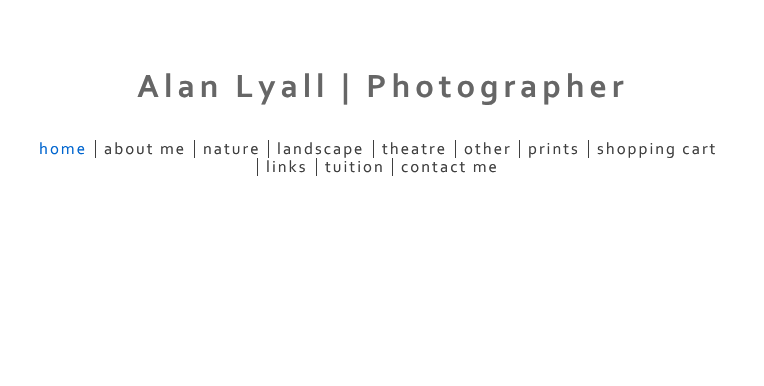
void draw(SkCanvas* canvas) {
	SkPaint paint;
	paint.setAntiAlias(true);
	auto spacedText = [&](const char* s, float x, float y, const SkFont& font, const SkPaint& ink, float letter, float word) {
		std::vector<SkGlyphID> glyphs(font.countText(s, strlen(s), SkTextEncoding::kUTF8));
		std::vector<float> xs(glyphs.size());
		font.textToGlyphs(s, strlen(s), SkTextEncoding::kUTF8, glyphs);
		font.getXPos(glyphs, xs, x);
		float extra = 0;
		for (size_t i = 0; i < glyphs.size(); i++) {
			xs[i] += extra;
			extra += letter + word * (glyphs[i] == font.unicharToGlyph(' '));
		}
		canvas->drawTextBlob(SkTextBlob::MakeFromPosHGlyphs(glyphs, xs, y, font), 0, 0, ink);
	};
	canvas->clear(0xffffffff);
	SkFont f1(fontMgr->matchFamilyStyle("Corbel", SkFontStyle::Bold()), 33.5);
	f1.setSubpixel(true);
	paint.setColor(0xff666666);
	spacedText("Alan Lyall | Photographer", 137, 97, f1, paint, 5, 0);
	SkFont f2(fontMgr->matchFamilyStyle("Corbel", SkFontStyle::Normal()), 16.75);
	f2.setSubpixel(true);
	paint.setColor(0xff0065cf);
	spacedText("home", 39, 154, f2, paint, 2, 0);
	paint.setColor(0xff3f3f3f);
	canvas->drawRect(SkRect::MakeXYWH(95, 140, 1, 18), paint);
	spacedText("about me", 104, 154, f2, paint, 2, 0);
	canvas->drawRect(SkRect::MakeXYWH(194, 140, 1, 18), paint);
	spacedText("nature", 203, 154, f2, paint, 2, 0);
	canvas->drawRect(SkRect::MakeXYWH(268, 140, 1, 18), paint);
	spacedText("landscape", 277, 154, f2, paint, 2, 0);
	canvas->drawRect(SkRect::MakeXYWH(373, 140, 1, 18), paint);
	spacedText("theatre", 382, 154, f2, paint, 2, 0);
	canvas->drawRect(SkRect::MakeXYWH(455, 140, 1, 18), paint);
	spacedText("other", 464, 154, f2, paint, 2, 0);
	canvas->drawRect(SkRect::MakeXYWH(519, 140, 1, 18), paint);
	spacedText("prints", 528, 154, f2, paint, 2, 0);
	canvas->drawRect(SkRect::MakeXYWH(588, 140, 1, 18), paint);
	spacedText("shopping cart", 597, 154, f2, paint, 2, 0);
	canvas->drawRect(SkRect::MakeXYWH(257, 158, 1, 18), paint);
	spacedText("links", 266, 172, f2, paint, 2, 0);
	canvas->drawRect(SkRect::MakeXYWH(316, 158, 1, 18), paint);
	spacedText("tuition", 325, 172, f2, paint, 2, 0);
	canvas->drawRect(SkRect::MakeXYWH(392, 158, 1, 18), paint);
	spacedText("contact me", 401, 172, f2, paint, 2, 0);
}
